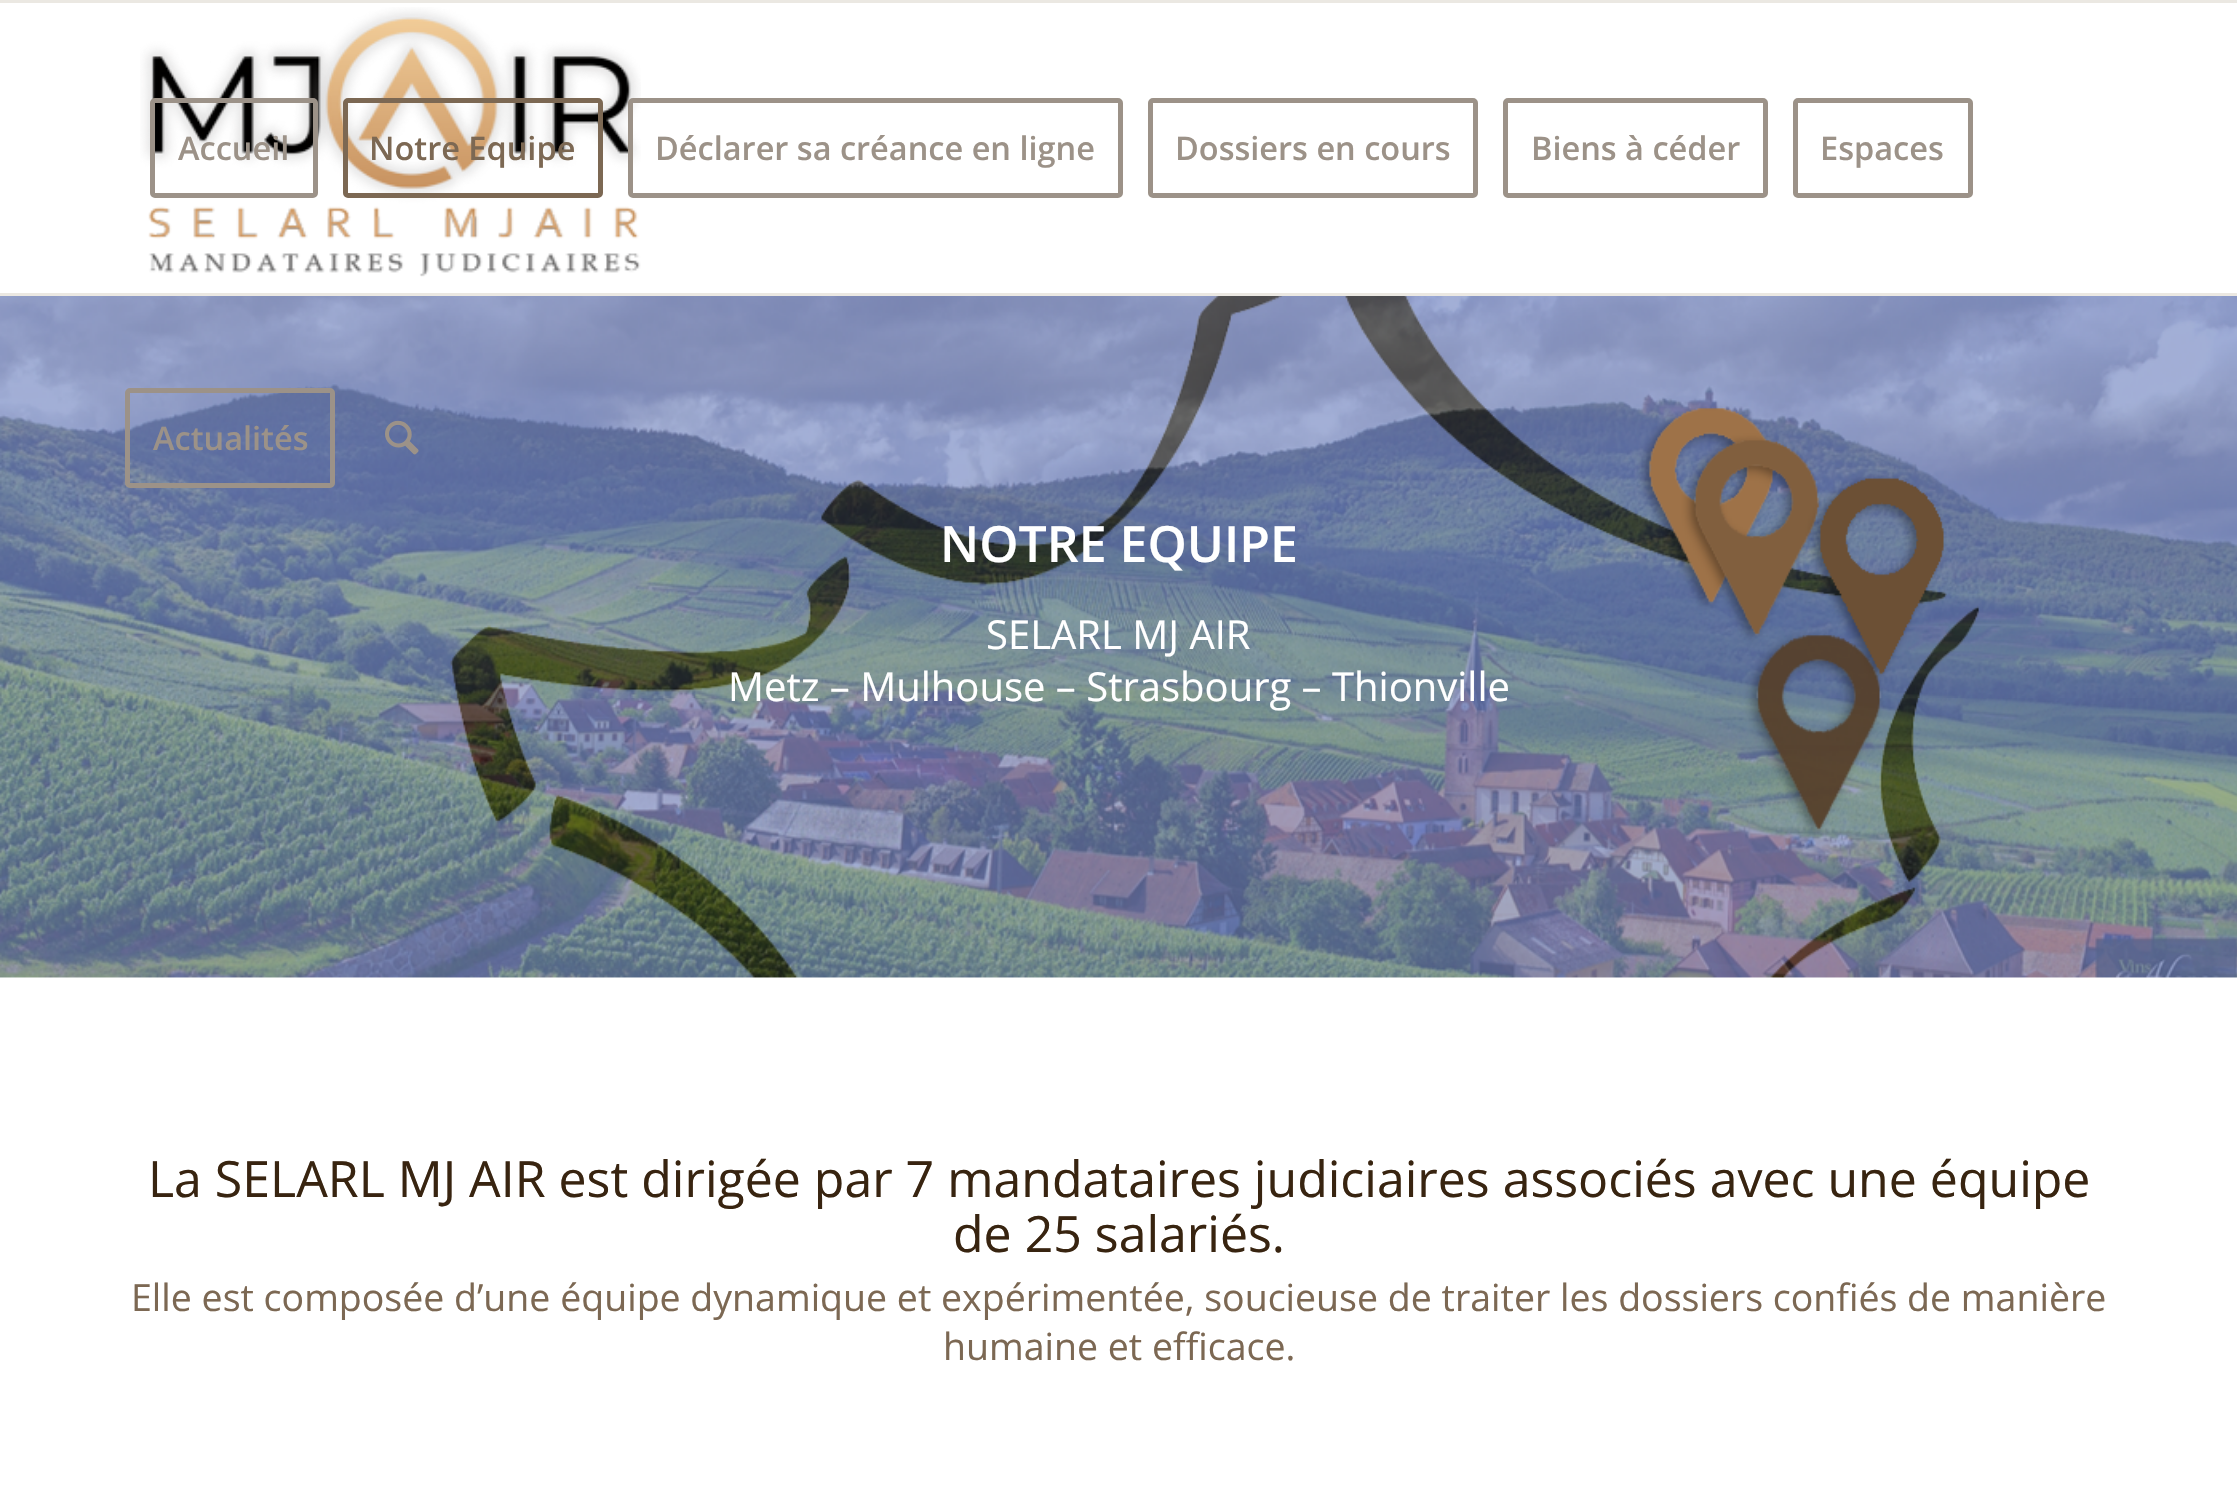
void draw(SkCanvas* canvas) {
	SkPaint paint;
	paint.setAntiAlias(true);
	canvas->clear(0xffffffff);
	paint.setColor(0xffebe8e2);
	canvas->drawRect(SkRect::MakeXYWH(0, 0, 2237, 3), paint);
	canvas->drawRect(SkRect::MakeXYWH(0, 293, 2237, 3), paint);
	canvas->drawImageRect(SkImages::DeferredFromEncodedData(SkData::MakeFromFileName("img1.png")), SkRect::MakeXYWH(140, 7, 501, 270), SkSamplingOptions());
	paint.setStroke(true);
	paint.setStrokeWidth(5);
	paint.setColor(0xff9c9288);
	canvas->drawRoundRect(SkRect::MakeXYWH(152.5, 100.5, 163, 95), 2.5, 2.5, paint);
	SkFont f1(fontMgr->matchFamilyStyle("Open Sans", SkFontStyle(600, SkFontStyle::kNormal_Width, SkFontStyle::kUpright_Slant)), 32.5);
	f1.setSubpixel(true);
	paint.setStroke(false);
	canvas->drawString("Accueil", 178, 160, f1, paint);
	paint.setStroke(true);
	paint.setColor(0xff7c6853);
	canvas->drawRoundRect(SkRect::MakeXYWH(345.5, 100.5, 255, 95), 2.5, 2.5, paint);
	paint.setStroke(false);
	canvas->drawString("Notre Equipe", 369, 160, f1, paint);
	paint.setStroke(true);
	paint.setColor(0xff9c9288);
	canvas->drawRoundRect(SkRect::MakeXYWH(630.5, 100.5, 490, 95), 2.5, 2.5, paint);
	paint.setStroke(false);
	canvas->drawString("Déclarer sa créance en ligne", 655, 160, f1, paint);
	paint.setStroke(true);
	canvas->drawRoundRect(SkRect::MakeXYWH(1150.5, 100.5, 325, 95), 2.5, 2.5, paint);
	paint.setStroke(false);
	canvas->drawString("Dossiers en cours", 1175, 160, f1, paint);
	paint.setStroke(true);
	canvas->drawRoundRect(SkRect::MakeXYWH(1505.5, 100.5, 260, 95), 2.5, 2.5, paint);
	paint.setStroke(false);
	canvas->drawString("Biens à céder", 1531, 160, f1, paint);
	paint.setStroke(true);
	canvas->drawRoundRect(SkRect::MakeXYWH(1795.5, 100.5, 175, 95), 2.5, 2.5, paint);
	paint.setStroke(false);
	canvas->drawString("Espaces", 1820, 160, f1, paint);
	canvas->drawImageRect(SkImages::DeferredFromEncodedData(SkData::MakeFromFileName("img3.png")), SkRect::MakeXYWH(0, 296, 2237, 682), SkSamplingOptions());
	paint.setStroke(true);
	canvas->drawRoundRect(SkRect::MakeXYWH(127.5, 390.5, 205, 95), 2.5, 2.5, paint);
	paint.setStroke(false);
	canvas->drawString("Actualités", 153, 450, f1, paint);
	canvas->drawImageRect(SkImages::DeferredFromEncodedData(SkData::MakeFromFileName("img2.png")), SkRect::MakeXYWH(385, 420, 34, 35), SkSamplingOptions());
	SkFont f2(fontMgr->matchFamilyStyle("Open Sans", SkFontStyle(600, SkFontStyle::kNormal_Width, SkFontStyle::kUpright_Slant)), 50);
	f2.setSubpixel(true);
	paint.setColor(0xffffffff);
	canvas->drawString("NOTRE EQUIPE", 940, 562, f2, paint);
	SkFont f3(fontMgr->matchFamilyStyle("Open Sans", SkFontStyle::Normal()), 40);
	f3.setSubpixel(true);
	canvas->drawString("SELARL MJ AIR", 986, 649, f3, paint);
	canvas->drawString("Metz – Mulhouse – Strasbourg – Thionville", 728, 701, f3, paint);
	SkFont f4(fontMgr->matchFamilyStyle("Open Sans", SkFontStyle::Normal()), 50);
	f4.setSubpixel(true);
	paint.setColor(0xff382410);
	canvas->drawString("La SELARL MJ AIR est dirigée par 7 mandataires judiciaires associés avec une équipe", 148, 1197, f4, paint);
	canvas->drawString("de 25 salariés.", 953, 1252, f4, paint);
	SkFont f5(fontMgr->matchFamilyStyle("Open Sans", SkFontStyle::Normal()), 37.5);
	f5.setSubpixel(true);
	paint.setColor(0xff7c6853);
	canvas->drawString("Elle est composée d’une équipe dynamique et expérimentée, soucieuse de traiter les dossiers confiés de manière", 131, 1311, f5, paint);
	canvas->drawString("humaine et efficace.", 943, 1360, f5, paint);
}
